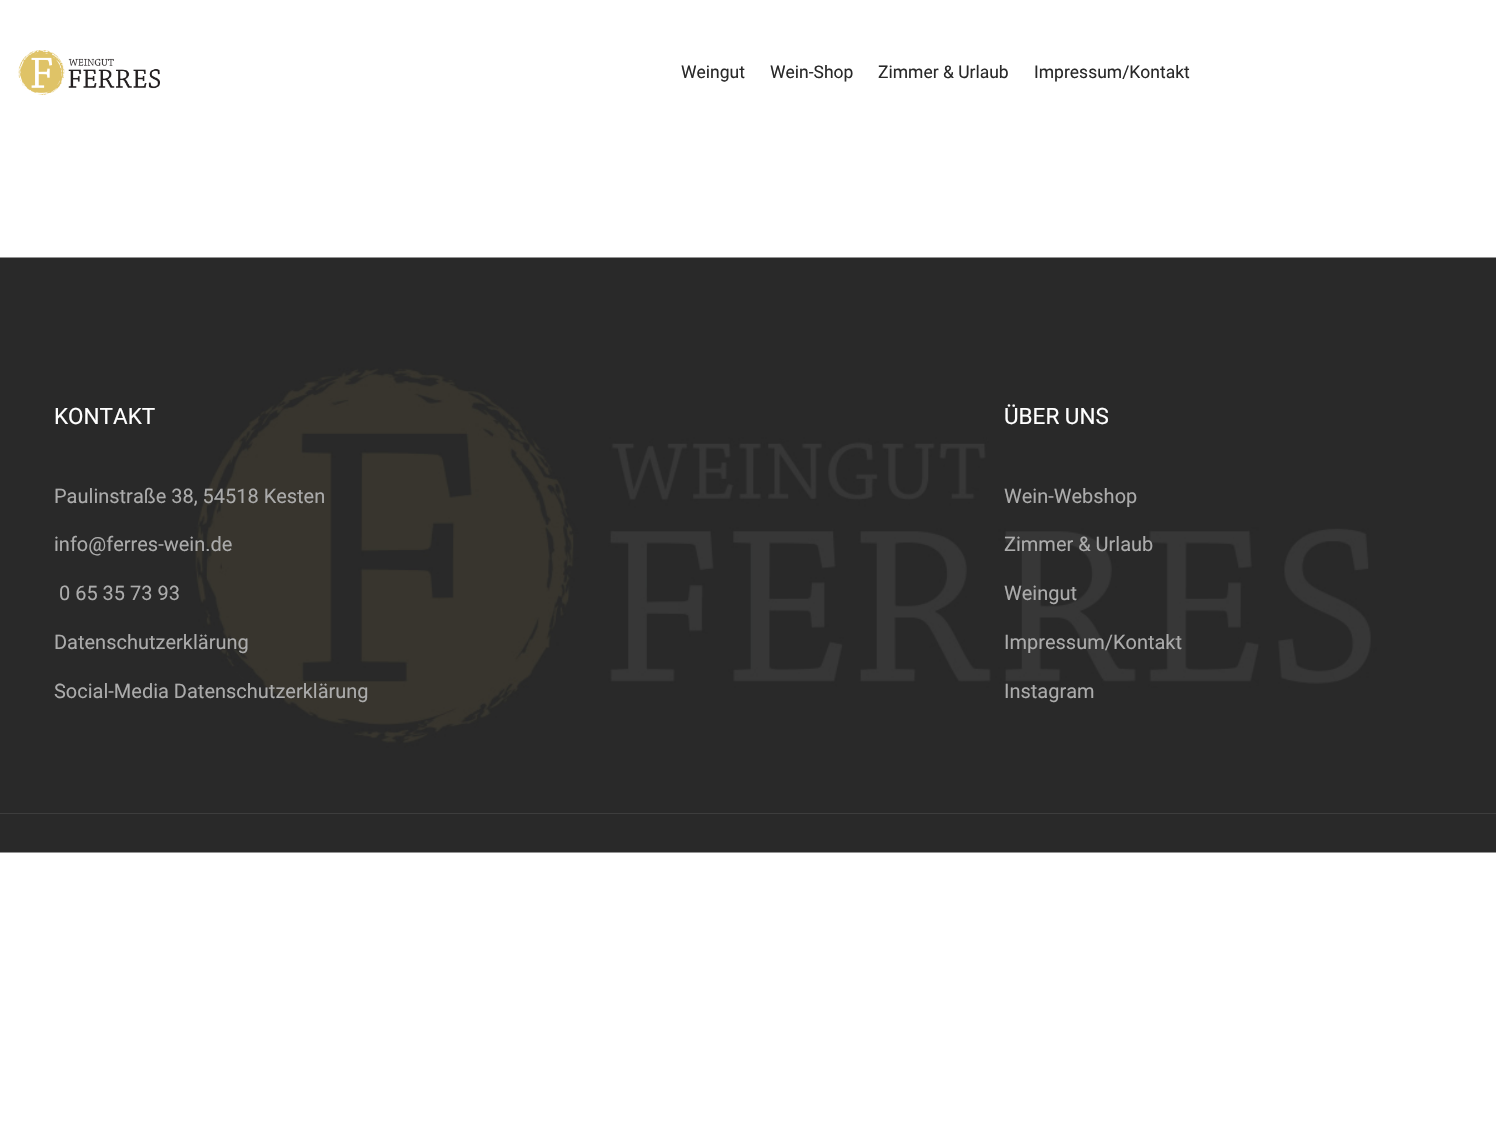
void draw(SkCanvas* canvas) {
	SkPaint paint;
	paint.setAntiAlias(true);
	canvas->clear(0xffffffff);
	canvas->drawImageRect(SkImages::DeferredFromEncodedData(SkData::MakeFromFileName("img1.png")), SkRect::MakeXYWH(18, 50, 142, 45), SkSamplingOptions());
	SkFont f1(fontMgr->matchFamilyStyle("Roboto", SkFontStyle::Normal()), 17.5);
	f1.setSubpixel(true);
	paint.setColor(0xff292929);
	canvas->drawString("Weingut", 681, 78, f1, paint);
	canvas->drawString("Wein-Shop", 770, 78, f1, paint);
	canvas->drawString("Zimmer & Urlaub", 878, 78, f1, paint);
	canvas->drawString("Impressum/Kontakt", 1034, 78, f1, paint);
	canvas->drawImageRect(SkImages::DeferredFromEncodedData(SkData::MakeFromFileName("img2.png")), SkRect::MakeXYWH(0, 257, 1496, 596), SkSamplingOptions());
	SkFont f2(fontMgr->matchFamilyStyle("Roboto", SkFontStyle::Normal()), 22.5);
	f2.setSubpixel(true);
	paint.setColor(0xffffffff);
	canvas->drawString("KONTAKT", 54, 424, f2, paint);
	SkFont f3(fontMgr->matchFamilyStyle("Roboto", SkFontStyle::Normal()), 20);
	f3.setSubpixel(true);
	paint.setColor(0xffababab);
	canvas->drawString("Paulinstraße 38, 54518 Kesten", 54, 503, f3, paint);
	canvas->drawString("info@ferres-wein.de", 54, 551, f3, paint);
	canvas->drawString("0 65 35 73 93", 59, 600, f3, paint);
	canvas->drawString("Datenschutzerklärung", 54, 649, f3, paint);
	canvas->drawString("Social-Media Datenschutzerklärung", 54, 698, f3, paint);
	paint.setColor(0xffffffff);
	canvas->drawString("ÜBER UNS", 1004, 424, f2, paint);
	paint.setColor(0xffababab);
	canvas->drawString("Wein-Webshop", 1004, 503, f3, paint);
	canvas->drawString("Zimmer & Urlaub", 1004, 551, f3, paint);
	canvas->drawString("Weingut", 1004, 600, f3, paint);
	canvas->drawString("Impressum/Kontakt", 1004, 649, f3, paint);
	canvas->drawString("Instagram", 1004, 698, f3, paint);
	paint.setColor(0xff3d3d3d);
	canvas->drawRect(SkRect::MakeXYWH(0, 813, 1496, 1), paint);
}
